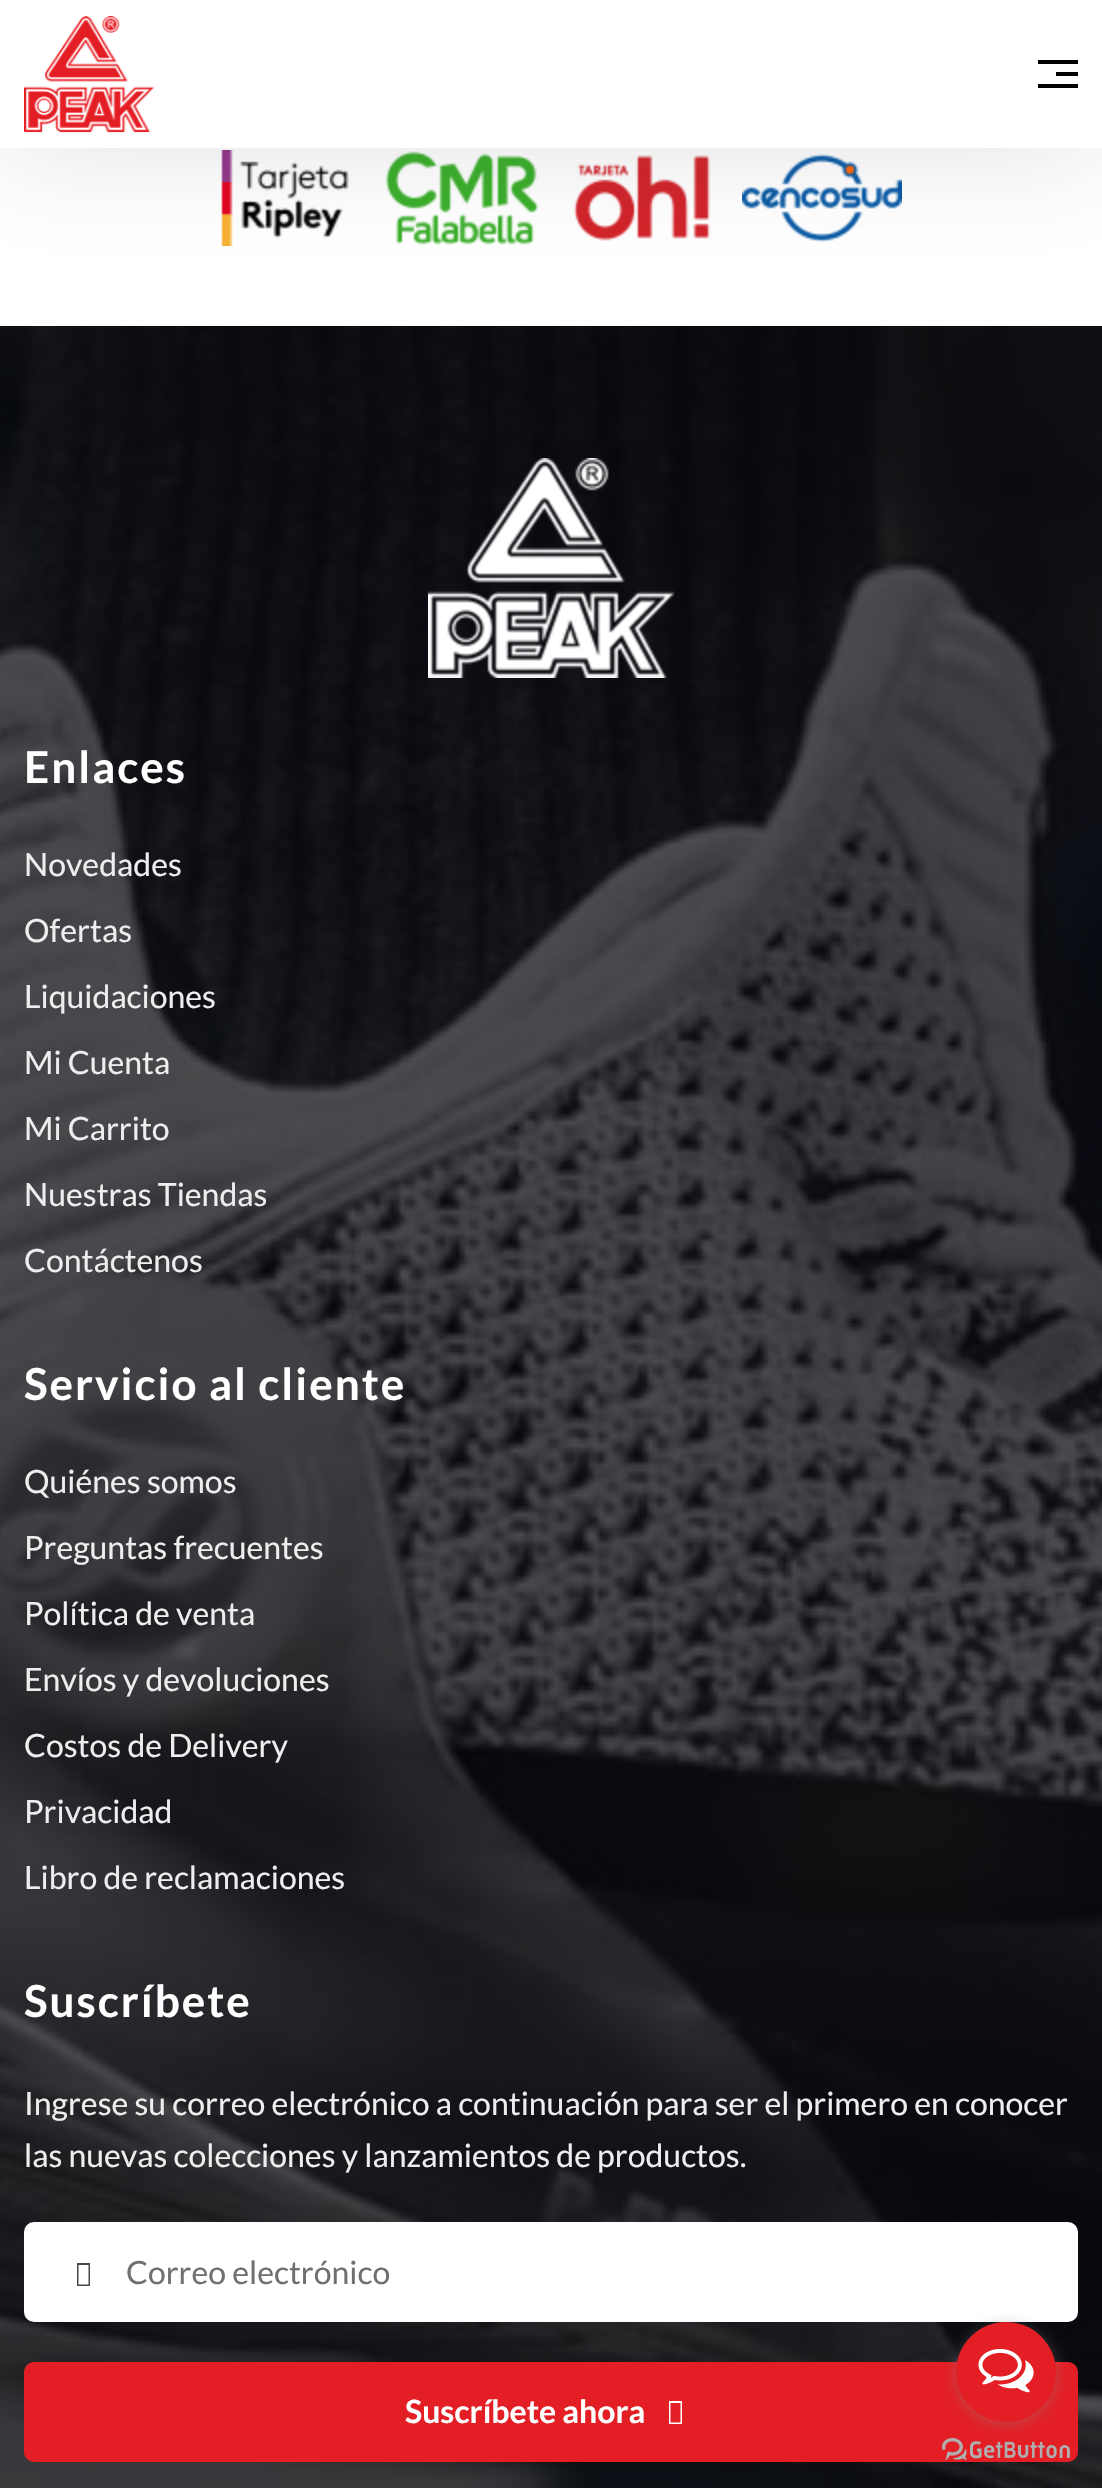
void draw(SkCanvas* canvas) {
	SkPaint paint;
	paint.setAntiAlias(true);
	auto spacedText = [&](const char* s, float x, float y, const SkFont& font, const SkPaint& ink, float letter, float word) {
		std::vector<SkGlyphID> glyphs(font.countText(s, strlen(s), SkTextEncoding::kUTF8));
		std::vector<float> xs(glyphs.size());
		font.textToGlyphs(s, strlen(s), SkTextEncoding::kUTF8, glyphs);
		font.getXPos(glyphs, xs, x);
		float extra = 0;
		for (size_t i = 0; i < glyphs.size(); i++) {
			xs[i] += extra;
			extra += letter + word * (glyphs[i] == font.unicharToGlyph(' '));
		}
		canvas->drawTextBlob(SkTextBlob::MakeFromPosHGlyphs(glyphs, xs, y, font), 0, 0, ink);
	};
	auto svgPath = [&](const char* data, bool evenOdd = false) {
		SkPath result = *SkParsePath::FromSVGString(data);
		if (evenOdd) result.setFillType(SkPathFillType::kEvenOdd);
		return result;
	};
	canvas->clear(0xffffffff);
	canvas->drawImageRect(SkImages::DeferredFromEncodedData(SkData::MakeFromFileName("img2.png")), SkRect::MakeXYWH(221, 150, 128, 96), SkSamplingOptions());
	canvas->drawImageRect(SkImages::DeferredFromEncodedData(SkData::MakeFromFileName("img3.png")), SkRect::MakeXYWH(385, 151, 154, 94), SkSamplingOptions());
	canvas->drawImageRect(SkImages::DeferredFromEncodedData(SkData::MakeFromFileName("img4.png")), SkRect::MakeXYWH(573, 155, 138, 86), SkSamplingOptions());
	canvas->drawImageRect(SkImages::DeferredFromEncodedData(SkData::MakeFromFileName("img5.png")), SkRect::MakeXYWH(742, 153, 160, 90), SkSamplingOptions());
	canvas->drawImageRect(SkImages::DeferredFromEncodedData(SkData::MakeFromFileName("img6.png")), SkRect::MakeXYWH(0, 326, 1102, 2162), SkSamplingOptions());
	paint.setColor(0x26353945);
	paint.setMaskFilter(SkMaskFilter::MakeBlur(kNormal_SkBlurStyle, 60));
	canvas->drawRect(SkRect::MakeXYWH(0, 0, 1102, 148), paint);
	paint.setMaskFilter(nullptr);
	paint.setColor(0xffffffff);
	canvas->drawRect(SkRect::MakeXYWH(0, 0, 1102, 148), paint);
	canvas->drawImageRect(SkImages::DeferredFromEncodedData(SkData::MakeFromFileName("img1.png")), SkRect::MakeXYWH(24, 16, 130, 117), SkSamplingOptions());
	paint.setColor(0xff000000);
	canvas->drawRect(SkRect::MakeXYWH(1038, 60, 40, 4), paint);
	canvas->drawRect(SkRect::MakeXYWH(1056, 72, 22, 4), paint);
	canvas->drawRect(SkRect::MakeXYWH(1038, 84, 40, 4), paint);
	canvas->drawImageRect(SkImages::DeferredFromEncodedData(SkData::MakeFromFileName("img7.png")), SkRect::MakeXYWH(428, 458, 246, 220), SkSamplingOptions());
	SkFont f1(fontMgr->matchFamilyStyle("Lato", SkFontStyle::Bold()), 44);
	f1.setSubpixel(true);
	paint.setColor(0xffffffff);
	spacedText("Enlaces", 24, 783, f1, paint, 2, 0);
	SkFont f2(fontMgr->matchFamilyStyle("Lato", SkFontStyle::Normal()), 32);
	f2.setSubpixel(true);
	paint.setColor(0xffeeeeee);
	canvas->drawString("Novedades", 24, 876, f2, paint);
	canvas->drawString("Ofertas", 24, 942, f2, paint);
	canvas->drawString("Liquidaciones", 24, 1008, f2, paint);
	canvas->drawString("Mi Cuenta", 24, 1074, f2, paint);
	canvas->drawString("Mi Carrito", 24, 1140, f2, paint);
	canvas->drawString("Nuestras Tiendas", 24, 1206, f2, paint);
	canvas->drawString("Contáctenos", 24, 1272, f2, paint);
	paint.setColor(0xffffffff);
	spacedText("Servicio al cliente", 24, 1400, f1, paint, 2, 0);
	paint.setColor(0xffeeeeee);
	canvas->drawString("Quiénes somos", 24, 1493, f2, paint);
	canvas->drawString("Preguntas frecuentes", 24, 1559, f2, paint);
	canvas->drawString("Política de venta", 24, 1625, f2, paint);
	canvas->drawString("Envíos y devoluciones", 24, 1691, f2, paint);
	canvas->drawString("Costos de Delivery", 24, 1757, f2, paint);
	canvas->drawString("Privacidad", 24, 1823, f2, paint);
	canvas->drawString("Libro de reclamaciones", 24, 1889, f2, paint);
	paint.setColor(0xffffffff);
	spacedText("Suscríbete", 24, 2017, f1, paint, 2, 0);
	paint.setColor(0xffeeeeee);
	canvas->drawString("Ingrese su correo electrónico a continuación para ser el primero en conocer", 24, 2115, f2, paint);
	canvas->drawString("las nuevas colecciones y lanzamientos de productos.", 24, 2167, f2, paint);
	paint.setColor(0xffffffff);
	canvas->drawRoundRect(SkRect::MakeXYWH(25, 2223, 1052, 98), 9, 9, paint);
	paint.setStroke(true);
	paint.setStrokeWidth(2);
	canvas->drawRoundRect(SkRect::MakeXYWH(25, 2223, 1052, 98), 9, 9, paint);
	paint.setStroke(false);
	paint.setColor(0xff474747);
	canvas->drawPath(svgPath("M77 2286V2263H90V2286ZM78.5 2284.5H88.5V2265H78.5Z"), paint);
	paint.setColor(0xff707070);
	canvas->drawString("Correo electrónico", 126, 2284, f2, paint);
	paint.setColor(0xffe31e24);
	canvas->drawRoundRect(SkRect::MakeXYWH(24, 2362, 1054, 100), 10, 10, paint);
	SkFont f3(fontMgr->matchFamilyStyle("Lato", SkFontStyle::Bold()), 32);
	f3.setSubpixel(true);
	paint.setColor(0xffffffff);
	canvas->drawString("Suscríbete ahora", 405, 2423, f3, paint);
	canvas->drawPath(svgPath("M669 2424V2401H682V2424ZM670.5 2422.5H680.5V2403H670.5Z"), paint);
	canvas->drawImageRect(SkImages::DeferredFromEncodedData(SkData::MakeFromFileName("img9.png")), SkRect::MakeXYWH(942, 2438, 128, 22), SkSamplingOptions());
	paint.setColor(0x66888888);
	paint.setMaskFilter(SkMaskFilter::MakeBlur(kNormal_SkBlurStyle, 7));
	canvas->drawRoundRect(SkRect::MakeXYWH(956, 2324, 100, 100), 50, 50, paint);
	paint.setMaskFilter(nullptr);
	paint.setColor(0xffe31e24);
	canvas->drawCircle(1006, 2372, 50, paint);
	canvas->drawImageRect(SkImages::DeferredFromEncodedData(SkData::MakeFromFileName("img8.png")), SkRect::MakeXYWH(978, 2349, 56, 44), SkSamplingOptions());
}
